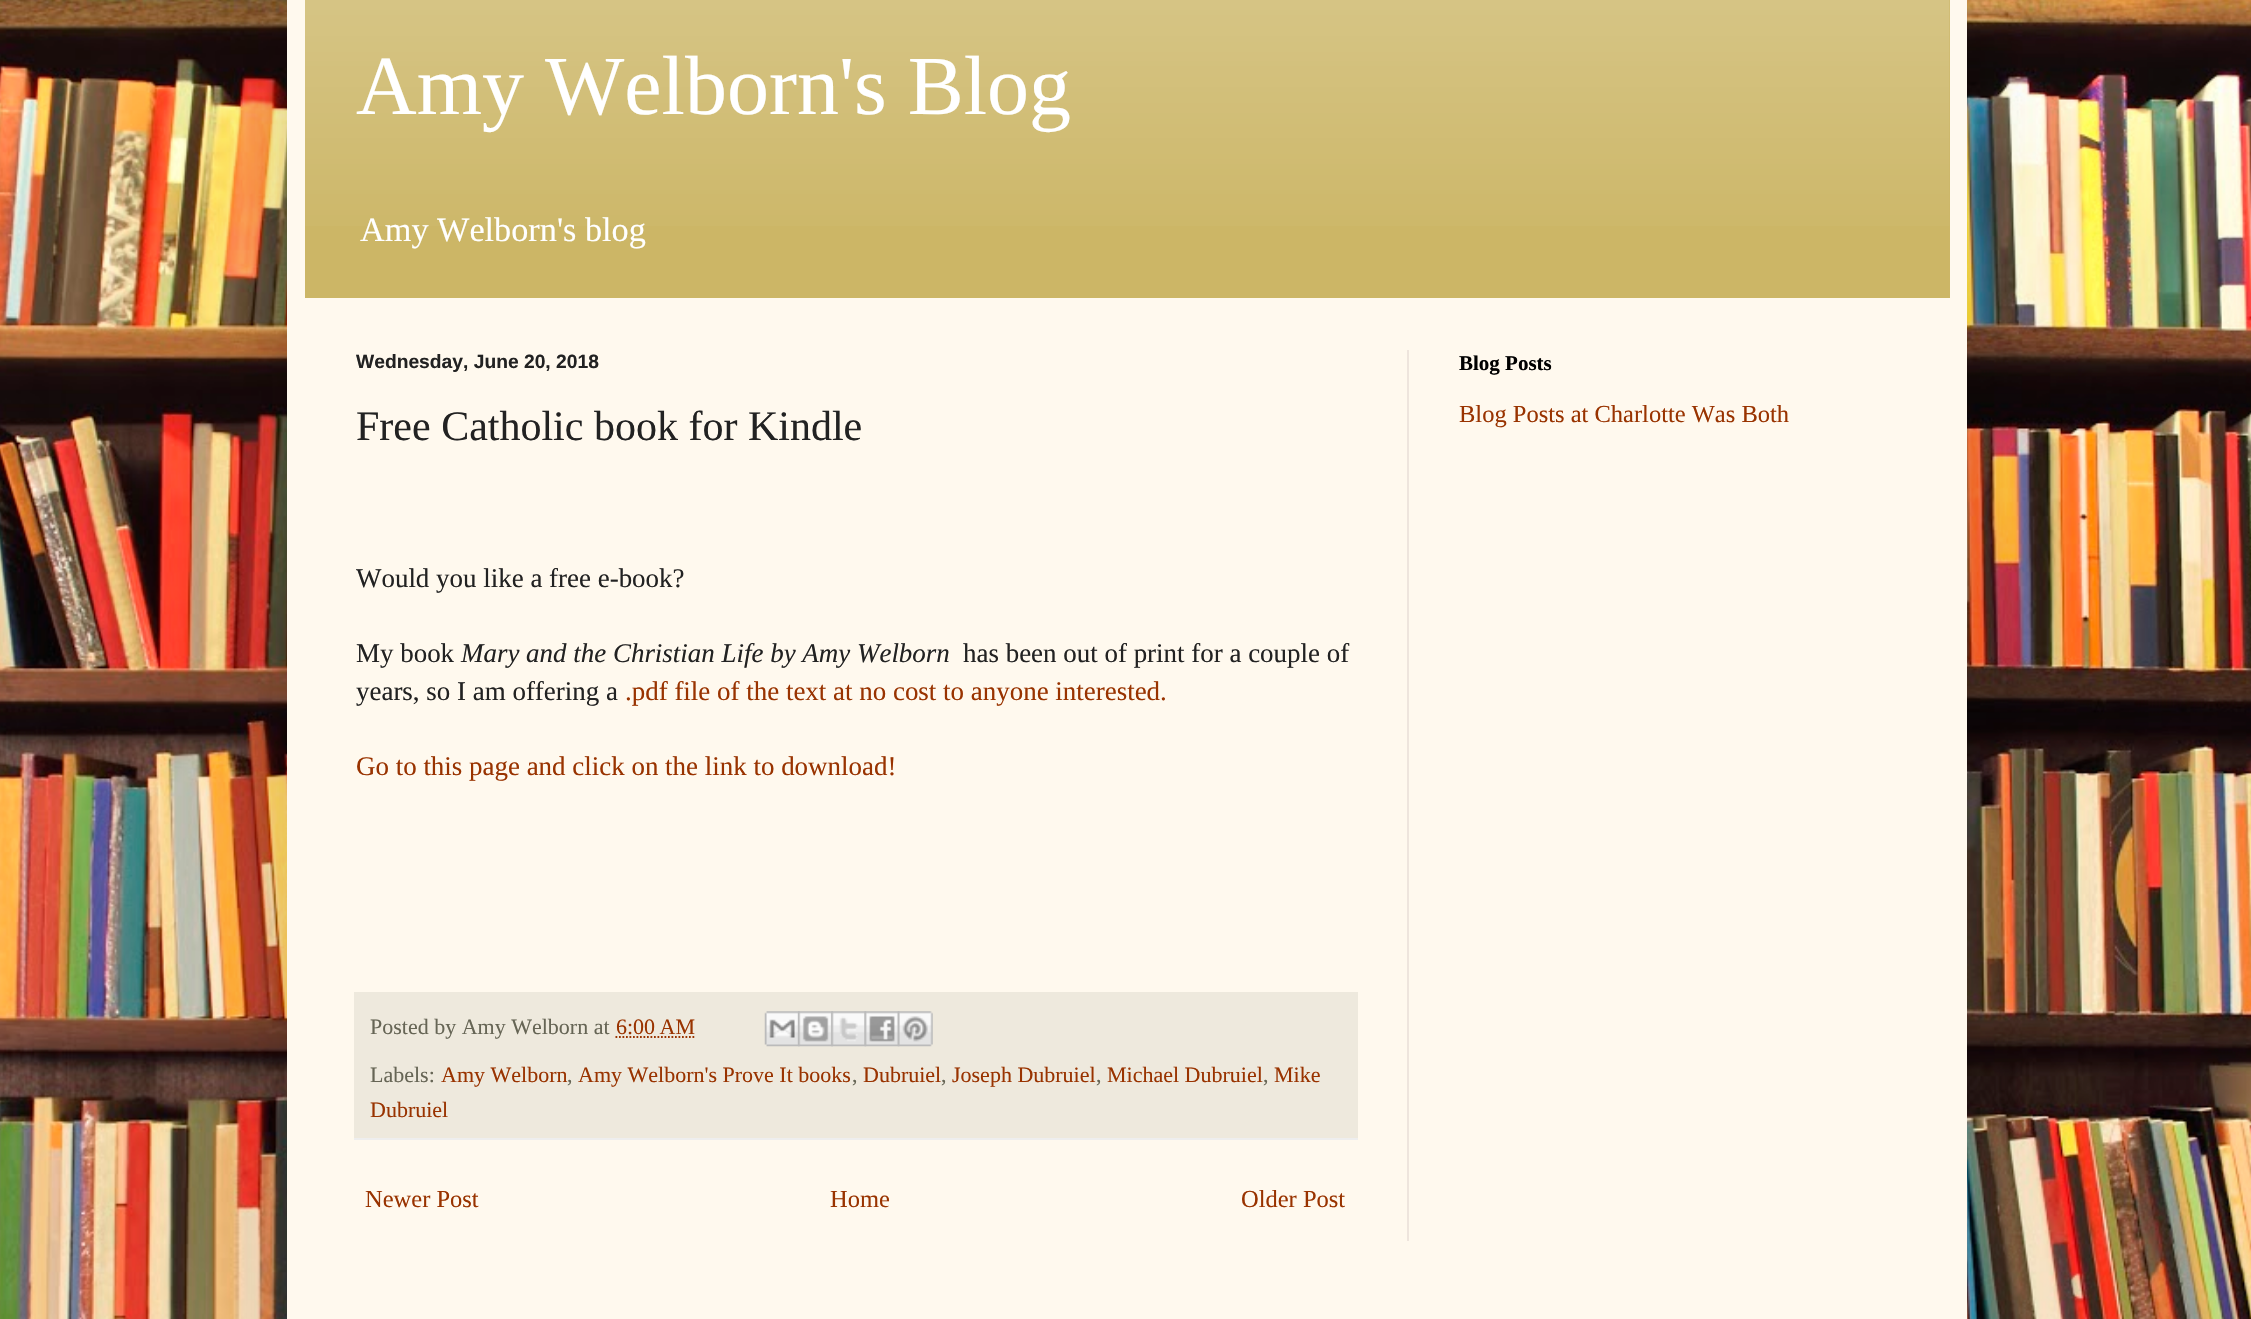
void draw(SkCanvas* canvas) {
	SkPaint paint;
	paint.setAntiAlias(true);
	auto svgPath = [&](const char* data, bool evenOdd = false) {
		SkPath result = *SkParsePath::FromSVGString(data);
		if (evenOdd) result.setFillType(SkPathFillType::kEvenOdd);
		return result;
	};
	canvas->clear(0xffffffff);
	canvas->drawImageRect(SkImages::DeferredFromEncodedData(SkData::MakeFromFileName("img1.png")), SkRect::MakeXYWH(0, 0, 2251, 1319), SkSamplingOptions());
	paint.setColor(0x26000000);
	paint.setMaskFilter(SkMaskFilter::MakeBlur(kNormal_SkBlurStyle, 35));
	canvas->drawRect(SkRect::MakeXYWH(287, -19, 1680, 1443), paint);
	paint.setMaskFilter(nullptr);
	paint.setColor(0xfffff9ee);
	canvas->drawRect(SkRect::MakeXYWH(287, 0, 1680, 1319), paint);
	paint.setColor(0xffccb666);
	canvas->drawRect(SkRect::MakeXYWH(305, 0, 1645, 298), paint);
	canvas->drawImageRect(SkImages::DeferredFromEncodedData(SkData::MakeFromFileName("img2.png")), SkRect::MakeXYWH(305, 0, 1645, 226), SkSamplingOptions());
	SkFont f1(fontMgr->matchFamilyStyle("Liberation Serif", SkFontStyle::Normal()), 84);
	f1.setSubpixel(true);
	paint.setColor(0xffffffff);
	canvas->drawString("Amy Welborn's Blog", 356, 114, f1, paint);
	SkFont f2(fontMgr->matchFamilyStyle("Liberation Serif", SkFontStyle::Normal()), 34.25);
	f2.setSubpixel(true);
	canvas->drawString("Amy Welborn's blog", 360, 241, f2, paint);
	paint.setColor(0xffeee5dd);
	canvas->drawRect(SkRect::MakeXYWH(1407, 350, 2, 891), paint);
	SkFont f3(fontMgr->matchFamilyStyle("Liberation Sans", SkFontStyle::Bold()), 19.25);
	f3.setSubpixel(true);
	paint.setColor(0xff222222);
	canvas->drawString("Wednesday, June 20, 2018", 356, 368, f3, paint);
	SkFont f4(fontMgr->matchFamilyStyle("Liberation Serif", SkFontStyle::Normal()), 42);
	f4.setSubpixel(true);
	canvas->drawString("Free Catholic book for Kindle", 356, 440, f4, paint);
	SkFont f5(fontMgr->matchFamilyStyle("Liberation Serif", SkFontStyle::Normal()), 26.95);
	f5.setSubpixel(true);
	canvas->drawString("Would you like a free e-book?", 356, 587, f5, paint);
	canvas->drawString("My book", 356, 662, f5, paint);
	SkFont f6(fontMgr->matchFamilyStyle("Liberation Serif", SkFontStyle::Italic()), 26.95);
	f6.setSubpixel(true);
	canvas->drawString("Mary and the Christian Life by Amy Welborn", 461, 662, f6, paint);
	canvas->drawString("has been out of print for a couple of", 963, 662, f5, paint);
	canvas->drawString("years, so I am offering a", 356, 700, f5, paint);
	paint.setColor(0xff993300);
	canvas->drawString(".pdf file of the text at no cost to anyone interested.", 625, 700, f5, paint);
	canvas->drawString("Go to this page and click on the link to download!", 356, 775, f5, paint);
	paint.setColor(0xffeee9dd);
	canvas->drawRect(SkRect::MakeXYWH(354, 992, 1004, 146), paint);
	paint.setColor(0xffeeeeee);
	canvas->drawRect(SkRect::MakeXYWH(354, 1138, 1004, 2), paint);
	SkFont f7(fontMgr->matchFamilyStyle("Liberation Serif", SkFontStyle::Normal()), 22);
	f7.setSubpixel(true);
	paint.setColor(0xff666555);
	canvas->drawString("Posted by Amy Welborn at", 370, 1034, f7, paint);
	paint.setColor(0xff993300);
	canvas->drawString("6:00 AM", 616, 1034, f7, paint);
	paint.setStroke(true);
	paint.setStrokeWidth(1.8);
	paint.setPathEffect(SkDashPathEffect::Make({{1.75f, 1.75f}}, 0));
	canvas->drawPath(svgPath("M615.5 1037H695"), paint);
	paint.setPathEffect(nullptr);
	canvas->drawImageRect(SkImages::DeferredFromEncodedData(SkData::MakeFromFileName("img3.png")), SkRect::MakeXYWH(764, 1011, 36, 36), SkSamplingOptions());
	canvas->drawImageRect(SkImages::DeferredFromEncodedData(SkData::MakeFromFileName("img4.png")), SkRect::MakeXYWH(798, 1011, 35, 36), SkSamplingOptions());
	canvas->drawImageRect(SkImages::DeferredFromEncodedData(SkData::MakeFromFileName("img5.png")), SkRect::MakeXYWH(831, 1011, 36, 36), SkSamplingOptions());
	canvas->drawImageRect(SkImages::DeferredFromEncodedData(SkData::MakeFromFileName("img6.png")), SkRect::MakeXYWH(864, 1011, 36, 36), SkSamplingOptions());
	canvas->drawImageRect(SkImages::DeferredFromEncodedData(SkData::MakeFromFileName("img7.png")), SkRect::MakeXYWH(897, 1011, 36, 36), SkSamplingOptions());
	paint.setStroke(false);
	paint.setColor(0xff666555);
	canvas->drawString("Labels:", 370, 1082, f7, paint);
	paint.setColor(0xff993300);
	canvas->drawString("Amy Welborn", 441, 1082, f7, paint);
	paint.setColor(0xff666555);
	canvas->drawString(",", 567, 1082, f7, paint);
	paint.setColor(0xff993300);
	canvas->drawString("Amy Welborn's Prove It books", 578, 1082, f7, paint);
	paint.setColor(0xff666555);
	canvas->drawString(",", 852, 1082, f7, paint);
	paint.setColor(0xff993300);
	canvas->drawString("Dubruiel", 863, 1082, f7, paint);
	paint.setColor(0xff666555);
	canvas->drawString(",", 941, 1082, f7, paint);
	paint.setColor(0xff993300);
	canvas->drawString("Joseph Dubruiel", 952, 1082, f7, paint);
	paint.setColor(0xff666555);
	canvas->drawString(",", 1096, 1082, f7, paint);
	paint.setColor(0xff993300);
	canvas->drawString("Michael Dubruiel", 1107, 1082, f7, paint);
	paint.setColor(0xff666555);
	canvas->drawString(",", 1263, 1082, f7, paint);
	paint.setColor(0xff993300);
	canvas->drawString("Mike", 1274, 1082, f7, paint);
	canvas->drawString("Dubruiel", 370, 1117, f7, paint);
	SkFont f8(fontMgr->matchFamilyStyle("Liberation Serif", SkFontStyle::Normal()), 24.5);
	f8.setSubpixel(true);
	canvas->drawString("Newer Post", 365, 1207, f8, paint);
	canvas->drawString("Home", 830, 1207, f8, paint);
	canvas->drawString("Older Post", 1241, 1207, f8, paint);
	SkFont f9(fontMgr->matchFamilyStyle("Liberation Serif", SkFontStyle::Bold()), 21);
	f9.setSubpixel(true);
	paint.setColor(0xff000000);
	canvas->drawString("Blog Posts", 1459, 370, f9, paint);
	paint.setColor(0xff993300);
	canvas->drawString("Blog Posts at Charlotte Was Both", 1459, 422, f8, paint);
}
